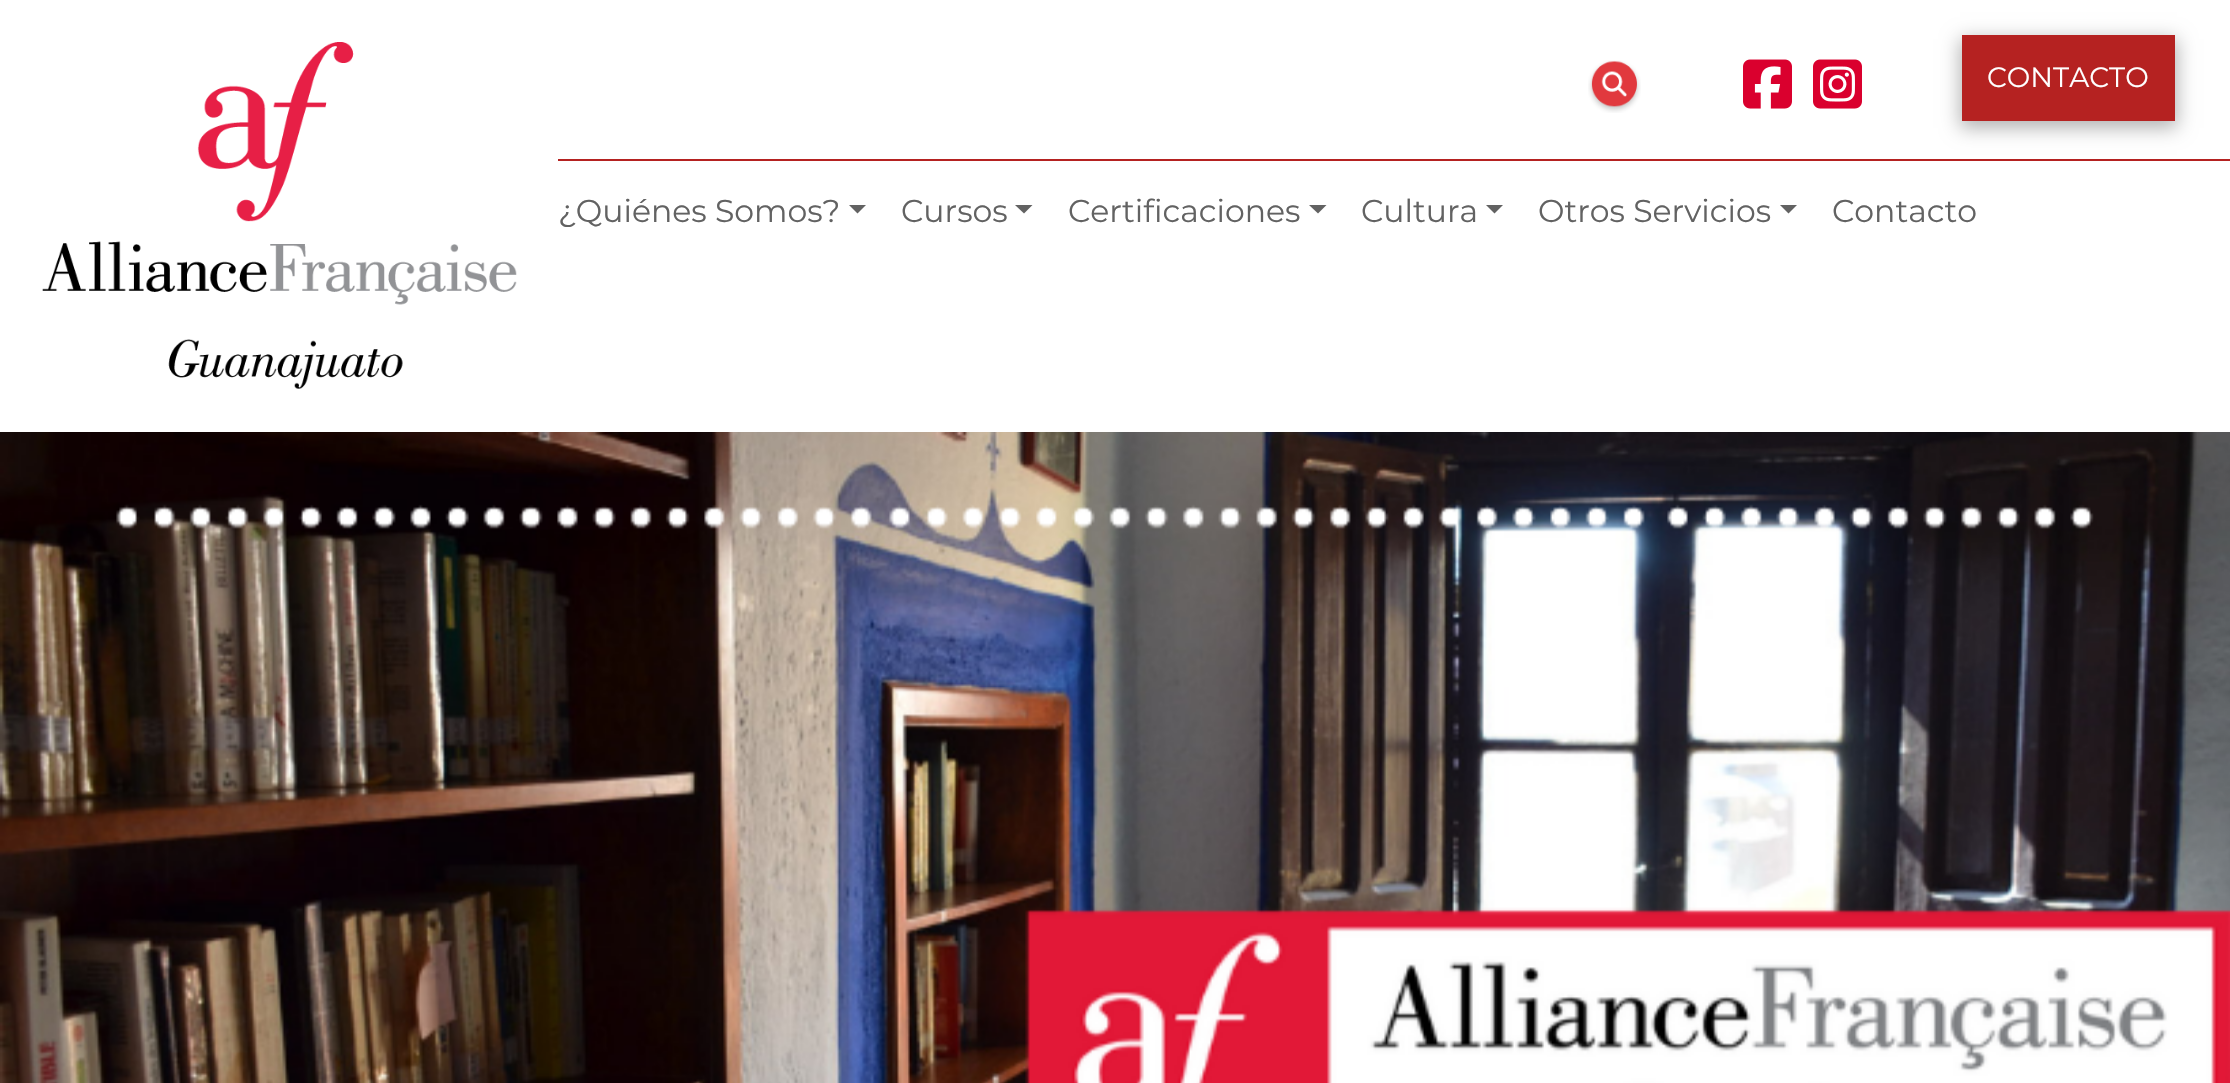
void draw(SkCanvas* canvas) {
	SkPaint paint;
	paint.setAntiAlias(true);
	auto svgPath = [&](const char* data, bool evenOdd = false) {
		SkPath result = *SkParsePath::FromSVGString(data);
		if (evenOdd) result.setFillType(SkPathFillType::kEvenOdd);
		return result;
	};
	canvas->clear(0xffffffff);
	canvas->drawImageRect(SkImages::DeferredFromEncodedData(SkData::MakeFromFileName("img1.png")), SkRect::MakeXYWH(42, 42, 475, 347), SkSamplingOptions());
	canvas->drawImageRect(SkImages::DeferredFromEncodedData(SkData::MakeFromFileName("img2.png")), SkRect::MakeXYWH(1588, 60, 53, 53), SkSamplingOptions());
	canvas->drawImageRect(SkImages::DeferredFromEncodedData(SkData::MakeFromFileName("img3.png")), SkRect::MakeXYWH(1743, 59, 49, 50), SkSamplingOptions());
	canvas->drawImageRect(SkImages::DeferredFromEncodedData(SkData::MakeFromFileName("img4.png")), SkRect::MakeXYWH(1813, 59, 49, 50), SkSamplingOptions());
	paint.setColor(0x4d000000);
	paint.setMaskFilter(SkMaskFilter::MakeBlur(kNormal_SkBlurStyle, 9));
	canvas->drawRect(SkRect::MakeXYWH(1960, 39, 217, 89), paint);
	paint.setMaskFilter(nullptr);
	paint.setColor(0xffb52221);
	canvas->drawRect(SkRect::MakeXYWH(1962, 35, 213, 86), paint);
	SkFont f1(fontMgr->matchFamilyStyle("Montserrat", SkFontStyle::Normal()), 28);
	f1.setSubpixel(true);
	paint.setColor(0xffffffff);
	canvas->drawString("CONTACTO", 1987, 87, f1, paint);
	paint.setColor(0xffb52221);
	canvas->drawRect(SkRect::MakeXYWH(558, 159, 1672, 2), paint);
	SkFont f2(fontMgr->matchFamilyStyle("Montserrat", SkFontStyle::Normal()), 31.5);
	f2.setSubpixel(true);
	paint.setColor(0xff626262);
	canvas->drawString("¿Quiénes Somos?", 558, 222, f2, paint);
	canvas->drawPath(svgPath("M849 205H866L857.5 213.5Z"), paint);
	canvas->drawString("Cursos", 901, 222, f2, paint);
	canvas->drawPath(svgPath("M1015 205H1032.5L1024 213.5Z"), paint);
	canvas->drawString("Certificaciones", 1068, 222, f2, paint);
	canvas->drawPath(svgPath("M1309 205H1326.5L1318 213.5Z"), paint);
	canvas->drawString("Cultura", 1361, 222, f2, paint);
	canvas->drawPath(svgPath("M1486 205H1503L1494.5 213.5Z"), paint);
	canvas->drawString("Otros Servicios", 1538, 222, f2, paint);
	canvas->drawPath(svgPath("M1780 205H1797L1788.5 213.5Z"), paint);
	canvas->drawString("Contacto", 1832, 222, f2, paint);
	canvas->drawImageRect(SkImages::DeferredFromEncodedData(SkData::MakeFromFileName("img5.png")), SkRect::MakeXYWH(0, 432, 2230, 651), SkSamplingOptions());
}
